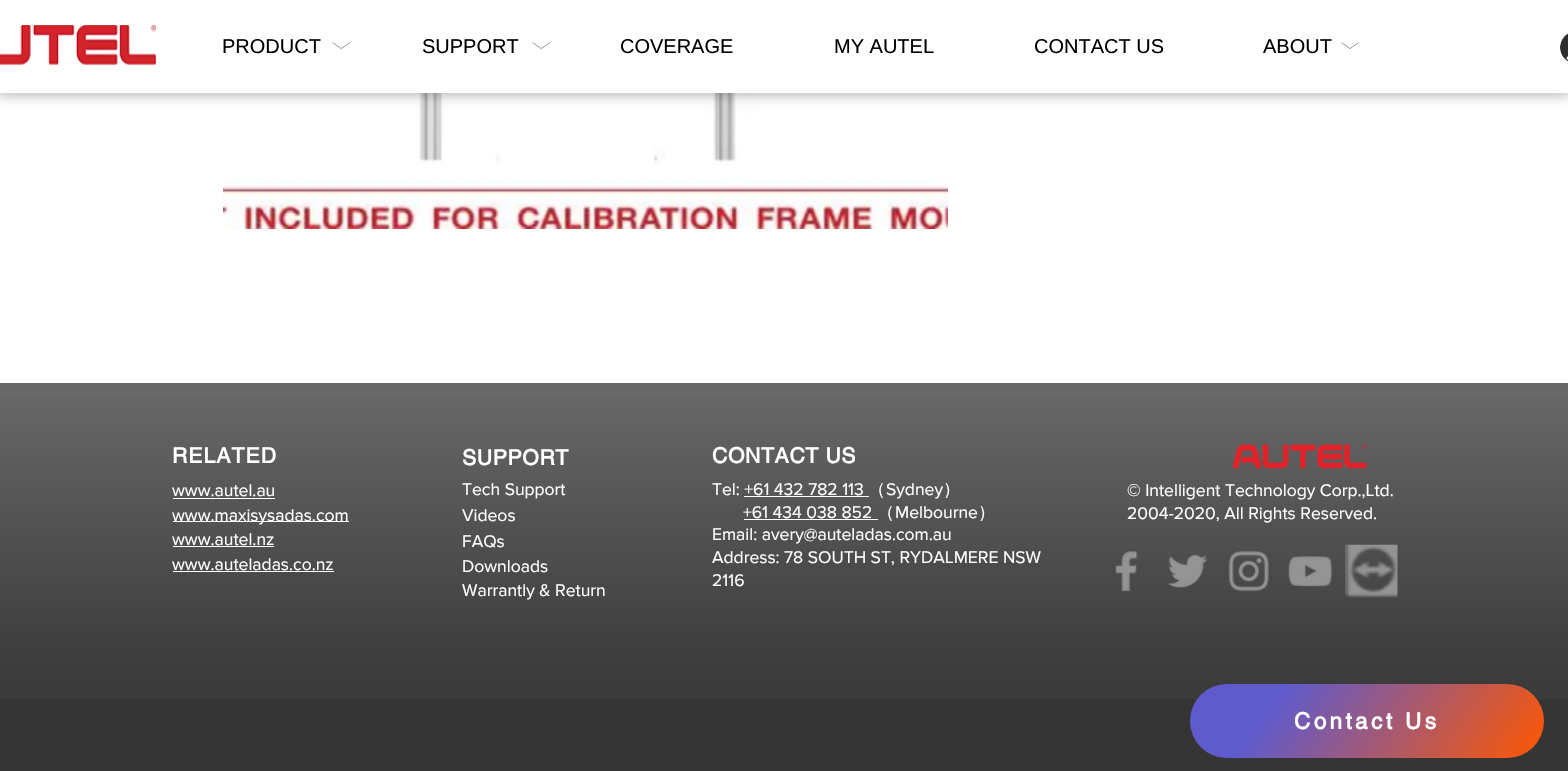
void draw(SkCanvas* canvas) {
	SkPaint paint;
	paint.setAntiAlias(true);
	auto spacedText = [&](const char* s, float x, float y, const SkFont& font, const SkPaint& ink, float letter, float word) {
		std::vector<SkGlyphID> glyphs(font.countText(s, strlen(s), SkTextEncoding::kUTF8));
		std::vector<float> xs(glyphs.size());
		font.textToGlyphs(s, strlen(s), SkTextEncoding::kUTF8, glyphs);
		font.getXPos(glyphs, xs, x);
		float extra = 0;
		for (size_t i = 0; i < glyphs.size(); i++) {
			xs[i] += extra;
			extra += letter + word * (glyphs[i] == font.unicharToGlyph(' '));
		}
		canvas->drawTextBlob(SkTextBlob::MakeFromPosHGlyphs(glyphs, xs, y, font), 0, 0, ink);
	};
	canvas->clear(0xffffffff);
	canvas->drawImageRect(SkImages::DeferredFromEncodedData(SkData::MakeFromFileName("img12.png")), SkRect::MakeXYWH(223, 93, 725, 136), SkSamplingOptions());
	paint.setColor(0x4d000000);
	paint.setMaskFilter(SkMaskFilter::MakeBlur(kNormal_SkBlurStyle, 6));
	canvas->drawRect(SkRect::MakeXYWH(-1, 0, 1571, 95), paint);
	paint.setMaskFilter(nullptr);
	paint.setColor(0xffffffff);
	canvas->drawRect(SkRect::MakeXYWH(0, 0, 1568, 93), paint);
	canvas->drawImageRect(SkImages::DeferredFromEncodedData(SkData::MakeFromFileName("img1.png")), SkRect::MakeXYWH(0, 25, 156, 40), SkSamplingOptions());
	SkFont f1(fontMgr->matchFamilyStyle("Liberation Sans", SkFontStyle::Normal()), 20);
	f1.setSubpixel(true);
	paint.setColor(0xff000000);
	canvas->drawString("PRODUCT", 222, 53, f1, paint);
	canvas->drawString("SUPPORT", 422, 53, f1, paint);
	canvas->drawString("COVERAGE", 620, 53, f1, paint);
	canvas->drawString("MY AUTEL", 834, 53, f1, paint);
	canvas->drawString("CONTACT US", 1034, 53, f1, paint);
	canvas->drawString("ABOUT", 1263, 53, f1, paint);
	canvas->drawImageRect(SkImages::DeferredFromEncodedData(SkData::MakeFromFileName("img2.png")), SkRect::MakeXYWH(1560, 33, 8, 29), SkSamplingOptions());
	canvas->drawImageRect(SkImages::DeferredFromEncodedData(SkData::MakeFromFileName("img3.png")), SkRect::MakeXYWH(332, 42, 18, 7), SkSamplingOptions());
	canvas->drawImageRect(SkImages::DeferredFromEncodedData(SkData::MakeFromFileName("img3.png")), SkRect::MakeXYWH(532, 42, 18, 7), SkSamplingOptions());
	canvas->drawImageRect(SkImages::DeferredFromEncodedData(SkData::MakeFromFileName("img4.png")), SkRect::MakeXYWH(1341, 42, 18, 7), SkSamplingOptions());
	paint.setColor(0xff353535);
	canvas->drawRect(SkRect::MakeXYWH(0, 383, 1568, 388), paint);
	canvas->drawImageRect(SkImages::DeferredFromEncodedData(SkData::MakeFromFileName("img5.png")), SkRect::MakeXYWH(0, 383, 1568, 316), SkSamplingOptions());
	SkFont f2(fontMgr->matchFamilyStyle("helvetica", SkFontStyle::Bold()), 21.25);
	f2.setSubpixel(true);
	paint.setColor(0xffffffff);
	spacedText("RELATED", 172, 463, f2, paint, 1, 0);
	SkFont f3(fontMgr->matchFamilyStyle("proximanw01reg", SkFontStyle::Normal()), 17.5);
	f3.setSubpixel(true);
	canvas->drawString("www.autel.au", 172, 496, f3, paint);
	canvas->drawRect(SkRect::MakeXYWH(173, 498, 102, 1), paint);
	canvas->drawRect(SkRect::MakeXYWH(173, 521, 176, 1), paint);
	canvas->drawString("www.maxisysadas.com", 172, 521, f3, paint);
	canvas->drawString("www.autel.nz", 172, 545, f3, paint);
	canvas->drawRect(SkRect::MakeXYWH(173, 546, 101, 1), paint);
	canvas->drawString("www.auteladas.co.nz", 172, 570, f3, paint);
	canvas->drawRect(SkRect::MakeXYWH(173, 571, 161, 1), paint);
	spacedText("SUPPORT", 462, 465, f2, paint, 0.6, 0);
	canvas->drawString("Tech Support", 462, 495, f3, paint);
	canvas->drawString("Videos", 462, 521, f3, paint);
	canvas->drawString("FAQs", 462, 547, f3, paint);
	canvas->drawString("Downloads", 462, 572, f3, paint);
	canvas->drawString("Warrantly & Return", 462, 596, f3, paint);
	spacedText("CONTACT US", 712, 463, f2, paint, 0.6, 0);
	canvas->drawString("Tel: +61 432 782 113", 712, 495, f3, paint);
	canvas->drawRect(SkRect::MakeXYWH(744, 496, 125, 1), paint);
	SkFont f4(fontMgr->matchFamilyStyle("WenQuanYi Zen Hei", SkFontStyle(500, SkFontStyle::kNormal_Width, SkFontStyle::kUpright_Slant)), 17.5);
	f4.setSubpixel(true);
	canvas->drawString("（", 868, 495, f4, paint);
	canvas->drawString("Sydney", 886, 495, f3, paint);
	canvas->drawString("）", 943, 495, f4, paint);
	canvas->drawString("+61 434 038 852", 743, 518, f3, paint);
	canvas->drawRect(SkRect::MakeXYWH(744, 519, 134, 1), paint);
	canvas->drawString("（", 877, 518, f4, paint);
	canvas->drawString("Melbourne", 895, 518, f3, paint);
	canvas->drawString("）", 978, 518, f4, paint);
	canvas->drawString("Email: avery@auteladas.com.au", 712, 540, f3, paint);
	canvas->drawString("Address: 78 SOUTH ST, RYDALMERE NSW", 712, 563, f3, paint);
	canvas->drawString("2116", 712, 586, f3, paint);
	canvas->drawImageRect(SkImages::DeferredFromEncodedData(SkData::MakeFromFileName("img6.png")), SkRect::MakeXYWH(1232, 443, 136, 26), SkSamplingOptions());
	canvas->drawString("© Intelligent Technology Corp.,Ltd.", 1127, 496, f3, paint);
	canvas->drawString("2004-2020, All Rights Reserved.", 1127, 519, f3, paint);
	canvas->drawImageRect(SkImages::DeferredFromEncodedData(SkData::MakeFromFileName("img7.png")), SkRect::MakeXYWH(1115, 551, 23, 41), SkSamplingOptions());
	canvas->drawImageRect(SkImages::DeferredFromEncodedData(SkData::MakeFromFileName("img8.png")), SkRect::MakeXYWH(1167, 554, 41, 34), SkSamplingOptions());
	canvas->drawImageRect(SkImages::DeferredFromEncodedData(SkData::MakeFromFileName("img9.png")), SkRect::MakeXYWH(1228, 551, 41, 41), SkSamplingOptions());
	canvas->drawImageRect(SkImages::DeferredFromEncodedData(SkData::MakeFromFileName("img10.png")), SkRect::MakeXYWH(1288, 556, 45, 31), SkSamplingOptions());
	canvas->drawImageRect(SkImages::DeferredFromEncodedData(SkData::MakeFromFileName("img11.png")), SkRect::MakeXYWH(1345, 544, 53, 54), SkSamplingOptions());
	{
		const SkColor colors[] = {0xff5f5bcd, 0xffff5700};
		const float stops[] = {0.24, 1};
		const SkPoint ends[] = {{1234, 624}, {1500, 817}};
		paint.setShader(SkGradientShader::MakeLinear(ends, colors, stops, 2, SkTileMode::kClamp));
		paint.setAlpha(255);
	}
	canvas->drawRoundRect(SkRect::MakeXYWH(1190, 684, 354, 74), 37, 37, paint);
	SkFont f5(fontMgr->matchFamilyStyle("helvetica", SkFontStyle::Bold()), 22.5);
	f5.setSubpixel(true);
	paint.setShader(nullptr);
	paint.setColor(0xffffffff);
	spacedText("Contact Us", 1294, 729, f5, paint, 3.4, 0);
}
